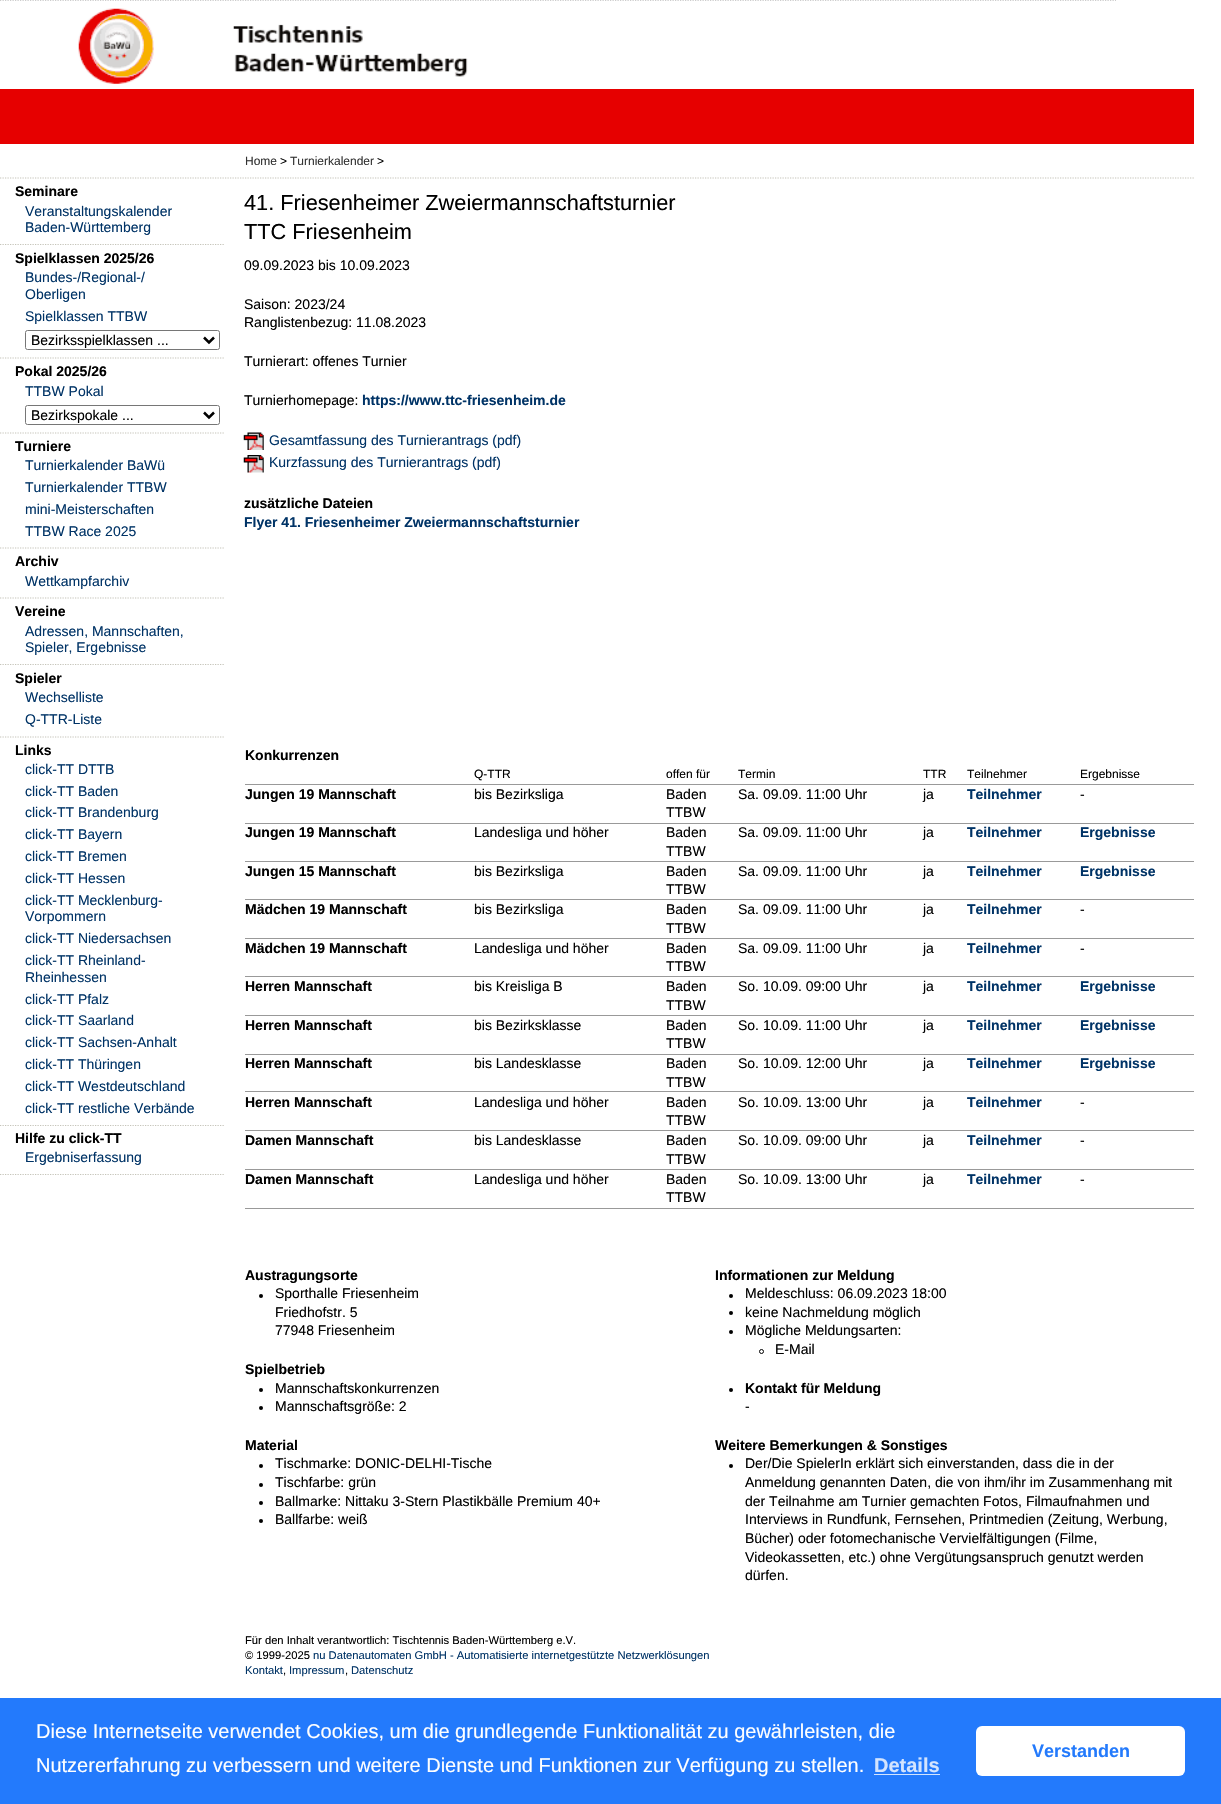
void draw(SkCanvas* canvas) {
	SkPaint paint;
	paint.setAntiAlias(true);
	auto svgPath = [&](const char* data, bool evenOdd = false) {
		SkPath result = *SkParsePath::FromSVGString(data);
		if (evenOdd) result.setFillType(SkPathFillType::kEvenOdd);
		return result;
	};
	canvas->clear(0xffffffff);
	paint.setStroke(true);
	paint.setStrokeWidth(1.2);
	paint.setColor(0xffcccccc);
	paint.setPathEffect(SkDashPathEffect::Make({{1.25f, 1.25f}}, 0));
	canvas->drawPath(svgPath("M0 .5H1116"), paint);
	paint.setPathEffect(nullptr);
	paint.setStroke(false);
	paint.setColor(0xffffffff);
	canvas->drawRect(SkRect::MakeXYWH(0, 1, 1116, 1), paint);
	canvas->drawImageRect(SkImages::DeferredFromEncodedData(SkData::MakeFromFileName("img1.png")), SkRect::MakeXYWH(78, 8, 390, 76), SkSamplingOptions());
	paint.setColor(0xffe60000);
	canvas->drawRect(SkRect::MakeXYWH(0, 89, 1194, 55), paint);
	paint.setStroke(true);
	paint.setColor(0xffc5c4b9);
	paint.setPathEffect(SkDashPathEffect::Make({{1.25f, 1.25f}}, 0));
	canvas->drawPath(svgPath("M0 178H1194"), paint);
	paint.setPathEffect(nullptr);
	SkFont f1(fontMgr->matchFamilyStyle("Liberation Sans", SkFontStyle::Normal()), 12);
	f1.setSubpixel(true);
	paint.setStroke(false);
	paint.setColor(0xff333333);
	canvas->drawString("Home", 245, 165, f1, paint);
	paint.setColor(0xff000000);
	canvas->drawString(">", 280, 165, f1, paint);
	paint.setColor(0xff333333);
	canvas->drawString("Turnierkalender", 290, 165, f1, paint);
	paint.setColor(0xff000000);
	canvas->drawString(">", 377, 165, f1, paint);
	paint.setStroke(true);
	paint.setColor(0xffc5c4b9);
	paint.setPathEffect(SkDashPathEffect::Make({{1.25f, 1.25f}}, 0));
	canvas->drawPath(svgPath("M0 244.5H225"), paint);
	paint.setPathEffect(nullptr);
	SkFont f2(fontMgr->matchFamilyStyle("Liberation Sans", SkFontStyle::Bold()), 14);
	f2.setSubpixel(true);
	paint.setStroke(false);
	paint.setColor(0xff000000);
	canvas->drawString("Seminare", 15, 196, f2, paint);
	SkFont f3(fontMgr->matchFamilyStyle("Liberation Sans", SkFontStyle::Normal()), 14);
	f3.setSubpixel(true);
	paint.setColor(0xff003366);
	canvas->drawString("Veranstaltungskalender", 25, 216, f3, paint);
	canvas->drawString("Baden-Württemberg", 25, 232, f3, paint);
	paint.setStroke(true);
	paint.setColor(0xffc5c4b9);
	paint.setPathEffect(SkDashPathEffect::Make({{1.25f, 1.25f}}, 0));
	canvas->drawPath(svgPath("M0 358H225"), paint);
	paint.setPathEffect(nullptr);
	paint.setStroke(false);
	paint.setColor(0xff000000);
	canvas->drawString("Spielklassen 2025/26", 15, 263, f2, paint);
	paint.setColor(0xff003366);
	canvas->drawString("Bundes-/Regional-/", 25, 282, f3, paint);
	canvas->drawString("Oberligen", 25, 299, f3, paint);
	canvas->drawString("Spielklassen TTBW", 25, 321, f3, paint);
	paint.setStroke(true);
	paint.setStrokeWidth(1);
	paint.setColor(0xff767676);
	canvas->drawRoundRect(SkRect::MakeXYWH(25.5, 330.5, 194, 19), 2, 2, paint);
	paint.setStrokeWidth(2.5);
	paint.setColor(0xff000000);
	canvas->drawPath(svgPath("M204 337.5L209 342.5L214 337.5"), paint);
	paint.setStroke(false);
	canvas->drawString("Bezirksspielklassen ...", 31, 345, f3, paint);
	paint.setStroke(true);
	paint.setStrokeWidth(1.2);
	paint.setColor(0xffc5c4b9);
	paint.setPathEffect(SkDashPathEffect::Make({{1.25f, 1.25f}}, 0));
	canvas->drawPath(svgPath("M0 433H225"), paint);
	paint.setPathEffect(nullptr);
	paint.setStroke(false);
	paint.setColor(0xff000000);
	canvas->drawString("Pokal 2025/26", 15, 376, f2, paint);
	paint.setColor(0xff003366);
	canvas->drawString("TTBW Pokal", 25, 396, f3, paint);
	paint.setStroke(true);
	paint.setStrokeWidth(1);
	paint.setColor(0xff767676);
	canvas->drawRoundRect(SkRect::MakeXYWH(25.5, 405.5, 194, 19), 2, 2, paint);
	paint.setStrokeWidth(2.5);
	paint.setColor(0xff000000);
	canvas->drawPath(svgPath("M204 412.5L209 417.5L214 412.5"), paint);
	paint.setStroke(false);
	canvas->drawString("Bezirkspokale ...", 31, 420, f3, paint);
	paint.setStroke(true);
	paint.setStrokeWidth(1.2);
	paint.setColor(0xffc5c4b9);
	paint.setPathEffect(SkDashPathEffect::Make({{1.25f, 1.25f}}, 0));
	canvas->drawPath(svgPath("M0 548H225"), paint);
	paint.setPathEffect(nullptr);
	paint.setStroke(false);
	paint.setColor(0xff000000);
	canvas->drawString("Turniere", 15, 451, f2, paint);
	paint.setColor(0xff003366);
	canvas->drawString("Turnierkalender BaWü", 25, 470, f3, paint);
	canvas->drawString("Turnierkalender TTBW", 25, 492, f3, paint);
	canvas->drawString("mini-Meisterschaften", 25, 514, f3, paint);
	canvas->drawString("TTBW Race 2025", 25, 536, f3, paint);
	paint.setStroke(true);
	paint.setColor(0xffc5c4b9);
	paint.setPathEffect(SkDashPathEffect::Make({{1.25f, 1.25f}}, 0));
	canvas->drawPath(svgPath("M0 598H225"), paint);
	paint.setPathEffect(nullptr);
	paint.setStroke(false);
	paint.setColor(0xff000000);
	canvas->drawString("Archiv", 15, 566, f2, paint);
	paint.setColor(0xff003366);
	canvas->drawString("Wettkampfarchiv", 25, 586, f3, paint);
	paint.setStroke(true);
	paint.setColor(0xffc5c4b9);
	paint.setPathEffect(SkDashPathEffect::Make({{1.25f, 1.25f}}, 0));
	canvas->drawPath(svgPath("M0 664.5H225"), paint);
	paint.setPathEffect(nullptr);
	paint.setStroke(false);
	paint.setColor(0xff000000);
	canvas->drawString("Vereine", 15, 616, f2, paint);
	paint.setColor(0xff003366);
	canvas->drawString("Adressen, Mannschaften,", 25, 636, f3, paint);
	canvas->drawString("Spieler, Ergebnisse", 25, 652, f3, paint);
	paint.setStroke(true);
	paint.setColor(0xffc5c4b9);
	paint.setPathEffect(SkDashPathEffect::Make({{1.25f, 1.25f}}, 0));
	canvas->drawPath(svgPath("M0 737H225"), paint);
	paint.setPathEffect(nullptr);
	paint.setStroke(false);
	paint.setColor(0xff000000);
	canvas->drawString("Spieler", 15, 683, f2, paint);
	paint.setColor(0xff003366);
	canvas->drawString("Wechselliste", 25, 702, f3, paint);
	canvas->drawString("Q-TTR-Liste", 25, 724, f3, paint);
	paint.setStroke(true);
	paint.setColor(0xffc5c4b9);
	paint.setPathEffect(SkDashPathEffect::Make({{1.25f, 1.25f}}, 0));
	canvas->drawPath(svgPath("M0 1125.5H225"), paint);
	paint.setPathEffect(nullptr);
	paint.setStroke(false);
	paint.setColor(0xff000000);
	canvas->drawString("Links", 15, 755, f2, paint);
	paint.setColor(0xff003366);
	canvas->drawString("click-TT DTTB", 25, 774, f3, paint);
	canvas->drawString("click-TT Baden", 25, 796, f3, paint);
	canvas->drawString("click-TT Brandenburg", 25, 817, f3, paint);
	canvas->drawString("click-TT Bayern", 25, 839, f3, paint);
	canvas->drawString("click-TT Bremen", 25, 861, f3, paint);
	canvas->drawString("click-TT Hessen", 25, 883, f3, paint);
	canvas->drawString("click-TT Mecklenburg-", 25, 905, f3, paint);
	canvas->drawString("Vorpommern", 25, 921, f3, paint);
	canvas->drawString("click-TT Niedersachsen", 25, 943, f3, paint);
	canvas->drawString("click-TT Rheinland-", 25, 965, f3, paint);
	canvas->drawString("Rheinhessen", 25, 982, f3, paint);
	canvas->drawString("click-TT Pfalz", 25, 1004, f3, paint);
	canvas->drawString("click-TT Saarland", 25, 1025, f3, paint);
	canvas->drawString("click-TT Sachsen-Anhalt", 25, 1047, f3, paint);
	canvas->drawString("click-TT Thüringen", 25, 1069, f3, paint);
	canvas->drawString("click-TT Westdeutschland", 25, 1091, f3, paint);
	canvas->drawString("click-TT restliche Verbände", 25, 1113, f3, paint);
	paint.setStroke(true);
	paint.setColor(0xffc5c4b9);
	paint.setPathEffect(SkDashPathEffect::Make({{1.25f, 1.25f}}, 0));
	canvas->drawPath(svgPath("M0 1174.5H225"), paint);
	paint.setPathEffect(nullptr);
	paint.setStroke(false);
	paint.setColor(0xff000000);
	canvas->drawString("Hilfe zu click-TT", 15, 1143, f2, paint);
	paint.setColor(0xff003366);
	canvas->drawString("Ergebniserfassung", 25, 1162, f3, paint);
	SkFont f4(fontMgr->matchFamilyStyle("Liberation Sans", SkFontStyle::Normal()), 21.75);
	f4.setSubpixel(true);
	paint.setColor(0xff000000);
	canvas->drawString("41. Friesenheimer Zweiermannschaftsturnier", 244, 210, f4, paint);
	canvas->drawString("TTC Friesenheim", 244, 239, f4, paint);
	canvas->drawString("09.09.2023 bis 10.09.2023", 244, 270, f3, paint);
	canvas->drawString("Saison: 2023/24", 244, 309, f3, paint);
	canvas->drawString("Ranglistenbezug: 11.08.2023", 244, 327, f3, paint);
	canvas->drawString("Turnierart: offenes Turnier", 244, 366, f3, paint);
	canvas->drawString("Turnierhomepage:", 244, 405, f3, paint);
	paint.setColor(0xff003366);
	canvas->drawString("https://www.ttc-friesenheim.de", 362, 405, f2, paint);
	canvas->drawImageRect(SkImages::DeferredFromEncodedData(SkData::MakeFromFileName("img2.png")), SkRect::MakeXYWH(243, 432, 21, 18), SkSamplingOptions());
	canvas->drawString("Gesamtfassung des Turnierantrags (pdf)", 269, 445, f3, paint);
	canvas->drawImageRect(SkImages::DeferredFromEncodedData(SkData::MakeFromFileName("img3.png")), SkRect::MakeXYWH(243, 455, 21, 18), SkSamplingOptions());
	canvas->drawString("Kurzfassung des Turnierantrags (pdf)", 269, 467, f3, paint);
	paint.setColor(0xff000000);
	canvas->drawString("zusätzliche Dateien", 244, 508, f2, paint);
	paint.setColor(0xff003366);
	canvas->drawString("Flyer 41. Friesenheimer Zweiermannschaftsturnier", 244, 527, f2, paint);
	paint.setColor(0xff000000);
	canvas->drawString("Konkurrenzen", 245, 760, f2, paint);
	canvas->drawString("Q-TTR", 474, 778, f1, paint);
	canvas->drawString("offen für", 666, 778, f1, paint);
	canvas->drawString("Termin", 738, 778, f1, paint);
	canvas->drawString("TTR", 923, 778, f1, paint);
	canvas->drawString("Teilnehmer", 967, 778, f1, paint);
	canvas->drawString("Ergebnisse", 1080, 778, f1, paint);
	paint.setColor(0xff999999);
	canvas->drawRect(SkRect::MakeXYWH(245, 784, 949, 1), paint);
	canvas->drawRect(SkRect::MakeXYWH(245, 823, 949, 1), paint);
	paint.setColor(0xff000000);
	canvas->drawString("Jungen 19 Mannschaft", 245, 799, f2, paint);
	canvas->drawString("bis Bezirksliga", 474, 799, f3, paint);
	canvas->drawString("Baden", 666, 799, f3, paint);
	canvas->drawString("TTBW", 666, 817, f3, paint);
	canvas->drawString("Sa. 09.09. 11:00 Uhr", 738, 799, f3, paint);
	canvas->drawString("ja", 923, 799, f3, paint);
	paint.setColor(0xff003366);
	canvas->drawString("Teilnehmer", 967, 799, f2, paint);
	paint.setColor(0xff000000);
	canvas->drawString("-", 1080, 799, f3, paint);
	paint.setColor(0xff999999);
	canvas->drawRect(SkRect::MakeXYWH(245, 861, 949, 1), paint);
	paint.setColor(0xff000000);
	canvas->drawString("Jungen 19 Mannschaft", 245, 837, f2, paint);
	canvas->drawString("Landesliga und höher", 474, 837, f3, paint);
	canvas->drawString("Baden", 666, 837, f3, paint);
	canvas->drawString("TTBW", 666, 856, f3, paint);
	canvas->drawString("Sa. 09.09. 11:00 Uhr", 738, 837, f3, paint);
	canvas->drawString("ja", 923, 837, f3, paint);
	paint.setColor(0xff003366);
	canvas->drawString("Teilnehmer", 967, 837, f2, paint);
	canvas->drawString("Ergebnisse", 1080, 837, f2, paint);
	paint.setColor(0xff999999);
	canvas->drawRect(SkRect::MakeXYWH(245, 899, 949, 1), paint);
	paint.setColor(0xff000000);
	canvas->drawString("Jungen 15 Mannschaft", 245, 876, f2, paint);
	canvas->drawString("bis Bezirksliga", 474, 876, f3, paint);
	canvas->drawString("Baden", 666, 876, f3, paint);
	canvas->drawString("TTBW", 666, 894, f3, paint);
	canvas->drawString("Sa. 09.09. 11:00 Uhr", 738, 876, f3, paint);
	canvas->drawString("ja", 923, 876, f3, paint);
	paint.setColor(0xff003366);
	canvas->drawString("Teilnehmer", 967, 876, f2, paint);
	canvas->drawString("Ergebnisse", 1080, 876, f2, paint);
	paint.setColor(0xff999999);
	canvas->drawRect(SkRect::MakeXYWH(245, 938, 949, 1), paint);
	paint.setColor(0xff000000);
	canvas->drawString("Mädchen 19 Mannschaft", 245, 914, f2, paint);
	canvas->drawString("bis Bezirksliga", 474, 914, f3, paint);
	canvas->drawString("Baden", 666, 914, f3, paint);
	canvas->drawString("TTBW", 666, 933, f3, paint);
	canvas->drawString("Sa. 09.09. 11:00 Uhr", 738, 914, f3, paint);
	canvas->drawString("ja", 923, 914, f3, paint);
	paint.setColor(0xff003366);
	canvas->drawString("Teilnehmer", 967, 914, f2, paint);
	paint.setColor(0xff000000);
	canvas->drawString("-", 1080, 914, f3, paint);
	paint.setColor(0xff999999);
	canvas->drawRect(SkRect::MakeXYWH(245, 976, 949, 1), paint);
	paint.setColor(0xff000000);
	canvas->drawString("Mädchen 19 Mannschaft", 245, 953, f2, paint);
	canvas->drawString("Landesliga und höher", 474, 953, f3, paint);
	canvas->drawString("Baden", 666, 953, f3, paint);
	canvas->drawString("TTBW", 666, 971, f3, paint);
	canvas->drawString("Sa. 09.09. 11:00 Uhr", 738, 953, f3, paint);
	canvas->drawString("ja", 923, 953, f3, paint);
	paint.setColor(0xff003366);
	canvas->drawString("Teilnehmer", 967, 953, f2, paint);
	paint.setColor(0xff000000);
	canvas->drawString("-", 1080, 953, f3, paint);
	paint.setColor(0xff999999);
	canvas->drawRect(SkRect::MakeXYWH(245, 1015, 949, 1), paint);
	paint.setColor(0xff000000);
	canvas->drawString("Herren Mannschaft", 245, 991, f2, paint);
	canvas->drawString("bis Kreisliga B", 474, 991, f3, paint);
	canvas->drawString("Baden", 666, 991, f3, paint);
	canvas->drawString("TTBW", 666, 1010, f3, paint);
	canvas->drawString("So. 10.09. 09:00 Uhr", 738, 991, f3, paint);
	canvas->drawString("ja", 923, 991, f3, paint);
	paint.setColor(0xff003366);
	canvas->drawString("Teilnehmer", 967, 991, f2, paint);
	canvas->drawString("Ergebnisse", 1080, 991, f2, paint);
	paint.setColor(0xff999999);
	canvas->drawRect(SkRect::MakeXYWH(245, 1054, 949, 1), paint);
	paint.setColor(0xff000000);
	canvas->drawString("Herren Mannschaft", 245, 1030, f2, paint);
	canvas->drawString("bis Bezirksklasse", 474, 1030, f3, paint);
	canvas->drawString("Baden", 666, 1030, f3, paint);
	canvas->drawString("TTBW", 666, 1048, f3, paint);
	canvas->drawString("So. 10.09. 11:00 Uhr", 738, 1030, f3, paint);
	canvas->drawString("ja", 923, 1030, f3, paint);
	paint.setColor(0xff003366);
	canvas->drawString("Teilnehmer", 967, 1030, f2, paint);
	canvas->drawString("Ergebnisse", 1080, 1030, f2, paint);
	paint.setColor(0xff999999);
	canvas->drawRect(SkRect::MakeXYWH(245, 1091, 949, 1), paint);
	paint.setColor(0xff000000);
	canvas->drawString("Herren Mannschaft", 245, 1068, f2, paint);
	canvas->drawString("bis Landesklasse", 474, 1068, f3, paint);
	canvas->drawString("Baden", 666, 1068, f3, paint);
	canvas->drawString("TTBW", 666, 1087, f3, paint);
	canvas->drawString("So. 10.09. 12:00 Uhr", 738, 1068, f3, paint);
	canvas->drawString("ja", 923, 1068, f3, paint);
	paint.setColor(0xff003366);
	canvas->drawString("Teilnehmer", 967, 1068, f2, paint);
	canvas->drawString("Ergebnisse", 1080, 1068, f2, paint);
	paint.setColor(0xff999999);
	canvas->drawRect(SkRect::MakeXYWH(245, 1130, 949, 1), paint);
	paint.setColor(0xff000000);
	canvas->drawString("Herren Mannschaft", 245, 1107, f2, paint);
	canvas->drawString("Landesliga und höher", 474, 1107, f3, paint);
	canvas->drawString("Baden", 666, 1107, f3, paint);
	canvas->drawString("TTBW", 666, 1125, f3, paint);
	canvas->drawString("So. 10.09. 13:00 Uhr", 738, 1107, f3, paint);
	canvas->drawString("ja", 923, 1107, f3, paint);
	paint.setColor(0xff003366);
	canvas->drawString("Teilnehmer", 967, 1107, f2, paint);
	paint.setColor(0xff000000);
	canvas->drawString("-", 1080, 1107, f3, paint);
	paint.setColor(0xff999999);
	canvas->drawRect(SkRect::MakeXYWH(245, 1169, 949, 1), paint);
	paint.setColor(0xff000000);
	canvas->drawString("Damen Mannschaft", 245, 1145, f2, paint);
	canvas->drawString("bis Landesklasse", 474, 1145, f3, paint);
	canvas->drawString("Baden", 666, 1145, f3, paint);
	canvas->drawString("TTBW", 666, 1164, f3, paint);
	canvas->drawString("So. 10.09. 09:00 Uhr", 738, 1145, f3, paint);
	canvas->drawString("ja", 923, 1145, f3, paint);
	paint.setColor(0xff003366);
	canvas->drawString("Teilnehmer", 967, 1145, f2, paint);
	paint.setColor(0xff000000);
	canvas->drawString("-", 1080, 1145, f3, paint);
	paint.setColor(0xff999999);
	canvas->drawRect(SkRect::MakeXYWH(245, 1208, 949, 1), paint);
	paint.setColor(0xff000000);
	canvas->drawString("Damen Mannschaft", 245, 1184, f2, paint);
	canvas->drawString("Landesliga und höher", 474, 1184, f3, paint);
	canvas->drawString("Baden", 666, 1184, f3, paint);
	canvas->drawString("TTBW", 666, 1202, f3, paint);
	canvas->drawString("So. 10.09. 13:00 Uhr", 738, 1184, f3, paint);
	canvas->drawString("ja", 923, 1184, f3, paint);
	paint.setColor(0xff003366);
	canvas->drawString("Teilnehmer", 967, 1184, f2, paint);
	paint.setColor(0xff000000);
	canvas->drawString("-", 1080, 1184, f3, paint);
	canvas->drawString("Austragungsorte", 245, 1280, f2, paint);
	canvas->drawCircle(261, 1296, 2, paint);
	canvas->drawString("Sporthalle Friesenheim", 275, 1298, f3, paint);
	canvas->drawString("Friedhofstr. 5", 275, 1317, f3, paint);
	canvas->drawString("77948 Friesenheim", 275, 1335, f3, paint);
	canvas->drawString("Spielbetrieb", 245, 1374, f2, paint);
	canvas->drawCircle(261, 1390, 2, paint);
	canvas->drawString("Mannschaftskonkurrenzen", 275, 1393, f3, paint);
	canvas->drawCircle(261, 1408, 2, paint);
	canvas->drawString("Mannschaftsgröße: 2", 275, 1411, f3, paint);
	canvas->drawString("Material", 245, 1450, f2, paint);
	canvas->drawCircle(261, 1466, 2, paint);
	canvas->drawString("Tischmarke: DONIC-DELHI-Tische", 275, 1468, f3, paint);
	canvas->drawCircle(261, 1485, 2, paint);
	canvas->drawString("Tischfarbe: grün", 275, 1487, f3, paint);
	canvas->drawCircle(261, 1503, 2, paint);
	canvas->drawString("Ballmarke: Nittaku 3-Stern Plastikbälle Premium 40+", 275, 1506, f3, paint);
	canvas->drawCircle(261, 1521, 2, paint);
	canvas->drawString("Ballfarbe: weiß", 275, 1524, f3, paint);
	canvas->drawString("Informationen zur Meldung", 715, 1280, f2, paint);
	canvas->drawCircle(731, 1296, 2, paint);
	canvas->drawString("Meldeschluss: 06.09.2023 18:00", 745, 1298, f3, paint);
	canvas->drawCircle(731, 1313, 2, paint);
	canvas->drawString("keine Nachmeldung möglich", 745, 1317, f3, paint);
	canvas->drawCircle(731, 1332, 2, paint);
	canvas->drawString("Mögliche Meldungsarten:", 745, 1335, f3, paint);
	paint.setStroke(true);
	paint.setStrokeWidth(1);
	canvas->drawCircle(761.5, 1351.5, 2, paint);
	paint.setStroke(false);
	canvas->drawString("E-Mail", 775, 1354, f3, paint);
	canvas->drawCircle(731, 1390, 2, paint);
	canvas->drawString("Kontakt für Meldung", 745, 1393, f2, paint);
	canvas->drawString("-", 745, 1411, f3, paint);
	canvas->drawString("Weitere Bemerkungen & Sonstiges", 715, 1450, f2, paint);
	canvas->drawCircle(731, 1466, 2, paint);
	canvas->drawString("Der/Die SpielerIn erklärt sich einverstanden, dass die in der", 745, 1468, f3, paint);
	canvas->drawString("Anmeldung genannten Daten, die von ihm/ihr im Zusammenhang mit", 745, 1487, f3, paint);
	canvas->drawString("der Teilnahme am Turnier gemachten Fotos, Filmaufnahmen und", 745, 1506, f3, paint);
	canvas->drawString("Interviews in Rundfunk, Fernsehen, Printmedien (Zeitung, Werbung,", 745, 1524, f3, paint);
	canvas->drawString("Bücher) oder fotomechanische Vervielfältigungen (Filme,", 745, 1543, f3, paint);
	canvas->drawString("Videokassetten, etc.) ohne Vergütungsanspruch genutzt werden", 745, 1562, f3, paint);
	canvas->drawString("dürfen.", 745, 1580, f3, paint);
	SkFont f5(fontMgr->matchFamilyStyle("Liberation Sans", SkFontStyle::Normal()), 11.2);
	f5.setSubpixel(true);
	canvas->drawString("Für den Inhalt verantwortlich: Tischtennis Baden-Württemberg e.V.", 245, 1644, f5, paint);
	canvas->drawString("© 1999-2025", 245, 1659, f5, paint);
	paint.setColor(0xff003366);
	canvas->drawString("nu Datenautomaten GmbH - Automatisierte internetgestützte Netzwerklösungen", 313, 1659, f5, paint);
	canvas->drawString("Kontakt", 245, 1674, f5, paint);
	paint.setColor(0xff000000);
	canvas->drawString(",", 283, 1674, f5, paint);
	paint.setColor(0xff003366);
	canvas->drawString("Impressum", 289, 1674, f5, paint);
	paint.setColor(0xff000000);
	canvas->drawString(",", 345, 1674, f5, paint);
	paint.setColor(0xff003366);
	canvas->drawString("Datenschutz", 351, 1674, f5, paint);
	paint.setColor(0xff237afc);
	canvas->drawRect(SkRect::MakeXYWH(0, 1698, 1221, 106), paint);
	SkFont f6(fontMgr->matchFamilyStyle("Liberation Sans", SkFontStyle::Normal()), 20);
	f6.setSubpixel(true);
	paint.setColor(0xffffffff);
	canvas->drawString("Diese Internetseite verwendet Cookies, um die grundlegende Funktionalität zu gewährleisten, die", 36, 1738, f6, paint);
	canvas->drawString("Nutzererfahrung zu verbessern und weitere Dienste und Funktionen zur Verfügung zu stellen.", 36, 1772, f6, paint);
	SkFont f7(fontMgr->matchFamilyStyle("Liberation Sans", SkFontStyle::Bold()), 20);
	f7.setSubpixel(true);
	paint.setColor(0xffd3e4fe);
	canvas->drawString("Details", 874, 1772, f7, paint);
	canvas->drawRect(SkRect::MakeXYWH(874, 1774, 66, 1), paint);
	paint.setColor(0xffffffff);
	canvas->drawRoundRect(SkRect::MakeXYWH(976, 1726, 209, 50), 6, 6, paint);
	SkFont f8(fontMgr->matchFamilyStyle("Liberation Sans", SkFontStyle::Bold()), 18);
	f8.setSubpixel(true);
	paint.setColor(0xff237afc);
	canvas->drawString("Verstanden", 1032, 1757, f8, paint);
}
